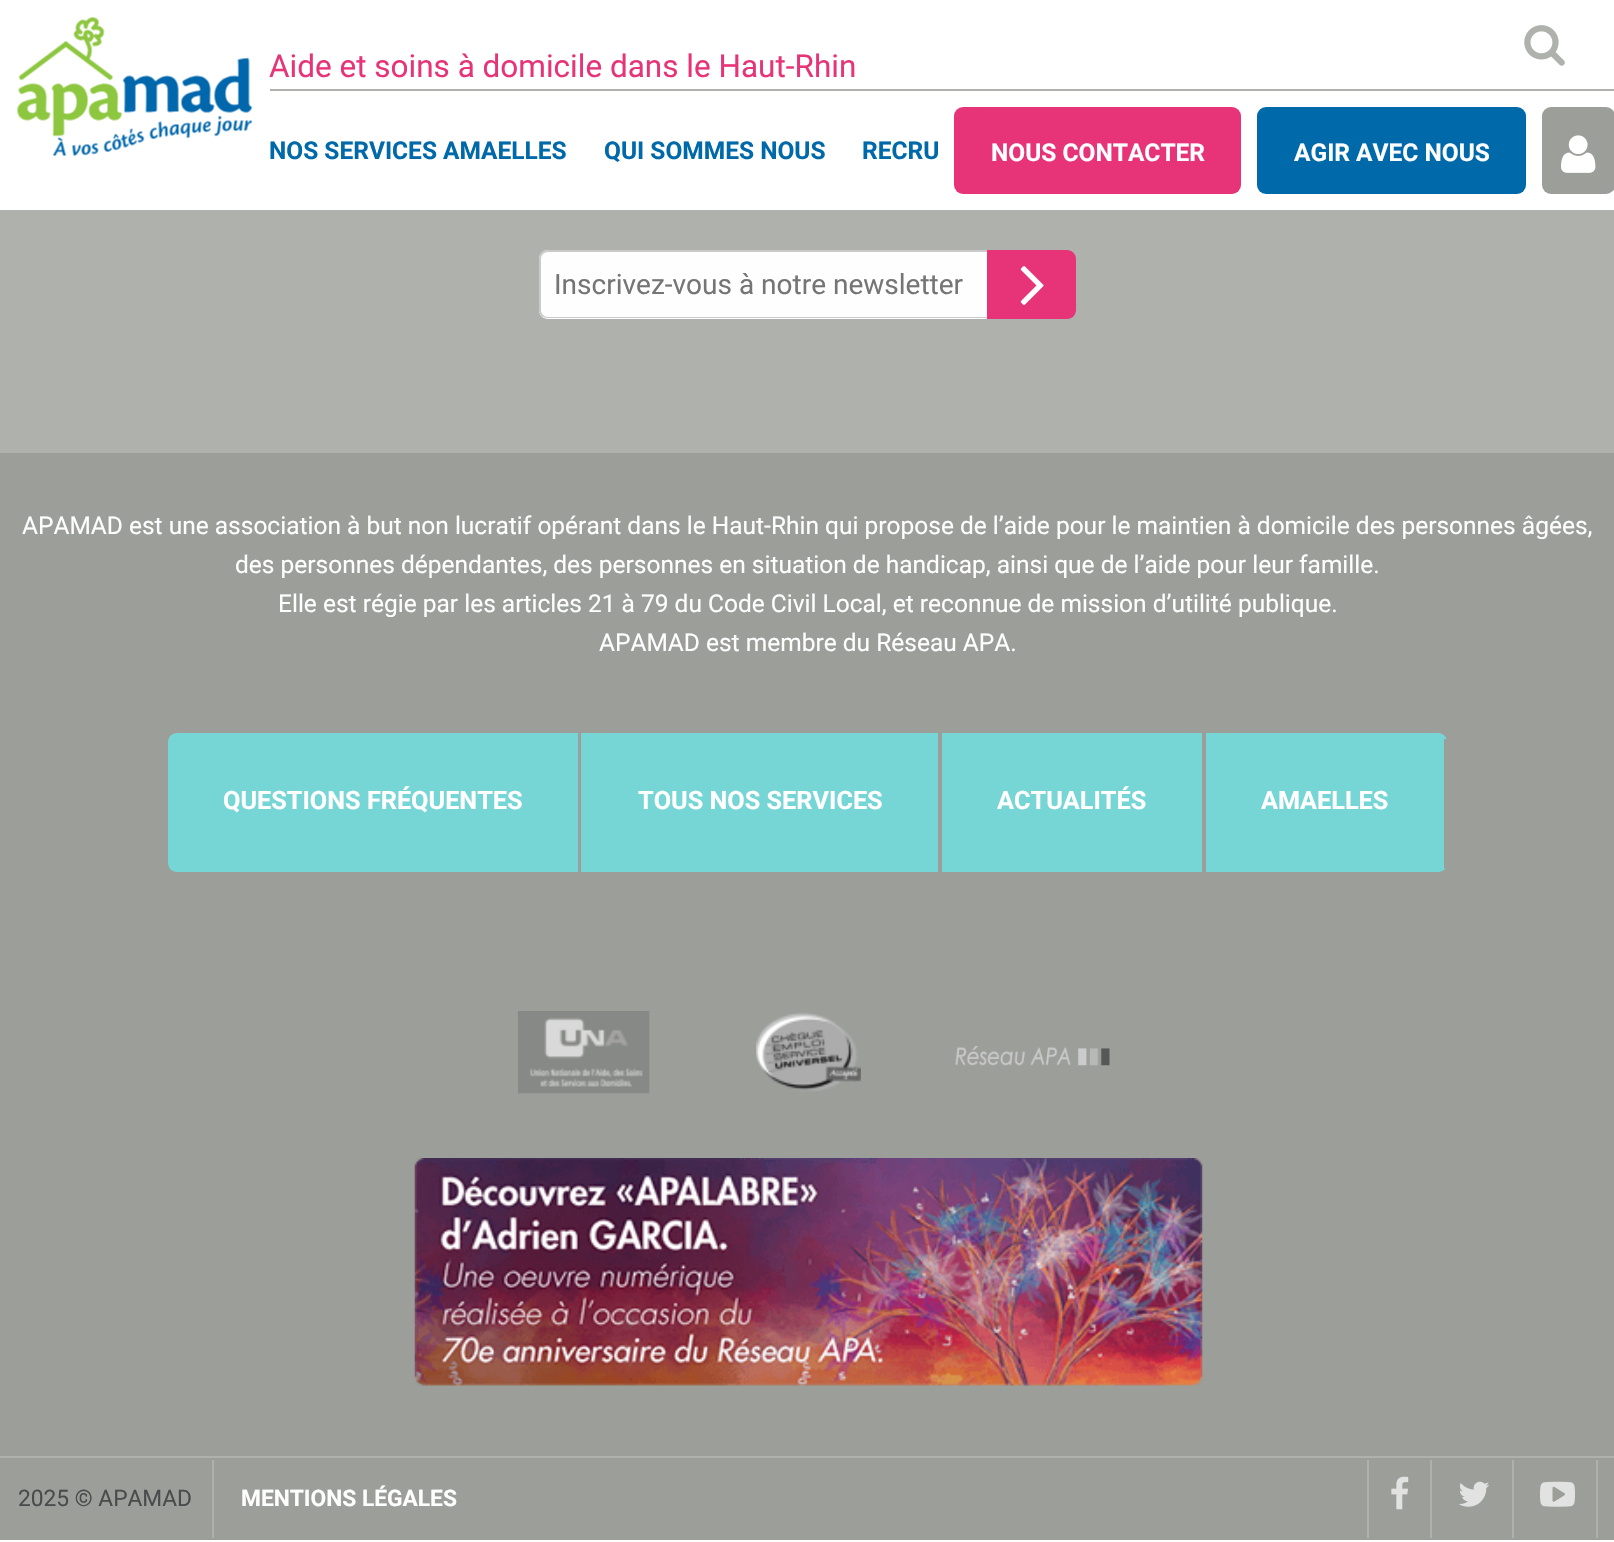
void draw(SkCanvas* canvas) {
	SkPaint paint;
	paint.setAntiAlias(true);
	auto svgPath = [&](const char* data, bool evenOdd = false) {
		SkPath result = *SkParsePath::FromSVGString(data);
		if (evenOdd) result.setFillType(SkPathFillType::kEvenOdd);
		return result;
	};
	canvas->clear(0xffffffff);
	canvas->drawImageRect(SkImages::DeferredFromEncodedData(SkData::MakeFromFileName("img1.png")), SkRect::MakeXYWH(17, 17, 236, 139), SkSamplingOptions());
	paint.setColor(0xffafb1ad);
	canvas->drawRect(SkRect::MakeXYWH(270, 89, 1344, 2), paint);
	SkFont f1(fontMgr->matchFamilyStyle("Roboto", SkFontStyle::Normal()), 31.5);
	f1.setSubpixel(true);
	paint.setColor(0xffe73479);
	canvas->drawString("Aide et soins à domicile dans le Haut-Rhin", 269, 77, f1, paint);
	canvas->drawImageRect(SkImages::DeferredFromEncodedData(SkData::MakeFromFileName("img2.png")), SkRect::MakeXYWH(1524, 25, 41, 41), SkSamplingOptions());
	SkFont f2(fontMgr->matchFamilyStyle("Roboto", SkFontStyle::Bold()), 24.5);
	f2.setSubpixel(true);
	paint.setColor(0xff0069aa);
	canvas->drawString("NOS SERVICES AMAELLES", 269, 159, f2, paint);
	canvas->drawString("QUI SOMMES NOUS", 604, 159, f2, paint);
	canvas->drawString("RECRU", 862, 159, f2, paint);
	paint.setColor(0xffe73479);
	canvas->drawRoundRect(SkRect::MakeXYWH(954, 107, 287, 87), 9, 9, paint);
	paint.setColor(0xfffefefe);
	canvas->drawString("NOUS CONTACTER", 991, 161, f2, paint);
	paint.setColor(0xff0069aa);
	canvas->drawRoundRect(SkRect::MakeXYWH(1257, 107, 269, 87), 9, 9, paint);
	paint.setColor(0xfffefefe);
	canvas->drawString("AGIR AVEC NOUS", 1294, 161, f2, paint);
	paint.setColor(0xff9b9e99);
	canvas->drawRoundRect(SkRect::MakeXYWH(1542, 107, 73, 87), 9, 9, paint);
	canvas->drawImageRect(SkImages::DeferredFromEncodedData(SkData::MakeFromFileName("img3.png")), SkRect::MakeXYWH(1561, 135, 35, 38), SkSamplingOptions());
	canvas->drawRect(SkRect::MakeXYWH(0, 453, 1614, 1087), paint);
	paint.setColor(0xffafb1ad);
	canvas->drawRect(SkRect::MakeXYWH(0, 210, 1614, 243), paint);
	paint.setColor(0xfffefefe);
	canvas->drawPath(svgPath("M548 250H987V319H548C543 319 539 315 539 310V259C539 254 543 250 548 250Z"), paint);
	paint.setColor(0xffcacaca);
	canvas->drawPath(svgPath("M548 250H987V318H548C543 318 539 315 539 310V259C539 254 543 250 548 250ZM548 252H987V317H548C544 317 541 314 541 310V259C541 255 544 252 548 252Z", true), paint);
	SkFont f3(fontMgr->matchFamilyStyle("Roboto", SkFontStyle::Normal()), 28);
	f3.setSubpixel(true);
	paint.setColor(0xff757575);
	canvas->drawString("Inscrivez-vous à notre newsletter", 554, 294, f3, paint);
	paint.setColor(0xffe73479);
	canvas->drawPath(svgPath("M987 250H1067C1072 250 1076 254 1076 259V310C1076 315 1072 319 1067 319H987Z"), paint);
	canvas->drawImageRect(SkImages::DeferredFromEncodedData(SkData::MakeFromFileName("img4.png")), SkRect::MakeXYWH(1020, 266, 24, 39), SkSamplingOptions());
	SkFont f4(fontMgr->matchFamilyStyle("Roboto", SkFontStyle::Normal()), 24.5);
	f4.setSubpixel(true);
	paint.setColor(0xfffefefe);
	canvas->drawString("APAMAD est une association à but non lucratif opérant dans le Haut-Rhin qui propose de l’aide pour le maintien à domicile des personnes âgées,", 22, 534, f4, paint);
	canvas->drawString("des personnes dépendantes, des personnes en situation de handicap, ainsi que de l’aide pour leur famille.", 235, 573, f4, paint);
	canvas->drawString("Elle est régie par les articles 21 à 79 du Code Civil Local, et reconnue de mission d’utilité publique.", 278, 612, f4, paint);
	canvas->drawString("APAMAD est membre du Réseau APA.", 599, 651, f4, paint);
	paint.setColor(0xff76d6d5);
	canvas->drawPath(svgPath("M177 733H581V872H177C172 872 168 868 168 863V742C168 737 172 733 177 733Z"), paint);
	paint.setColor(0xff9b9e99);
	canvas->drawRect(SkRect::MakeXYWH(578, 733, 3, 139), paint);
	SkFont f5(fontMgr->matchFamilyStyle("Roboto", SkFontStyle::Bold()), 25.25);
	f5.setSubpixel(true);
	paint.setColor(0xfffefefe);
	canvas->drawString("QUESTIONS FRÉQUENTES", 223, 809, f5, paint);
	paint.setColor(0xff76d6d5);
	canvas->drawRect(SkRect::MakeXYWH(581, 733, 357, 139), paint);
	paint.setColor(0xfffefefe);
	canvas->drawString("TOUS NOS SERVICES", 638, 809, f5, paint);
	paint.setColor(0xff76d6d5);
	canvas->drawRect(SkRect::MakeXYWH(942, 733, 260, 139), paint);
	paint.setColor(0xfffefefe);
	canvas->drawString("ACTUALITÉS", 997, 809, f5, paint);
	paint.setColor(0xff76d6d5);
	canvas->drawPath(svgPath("M1206 733H1438C1443 733 1447 737 1447 742V863C1447 868 1443 872 1438 872H1206Z"), paint);
	paint.setColor(0xff9b9e99);
	canvas->drawRect(SkRect::MakeXYWH(1444, 739, 3, 129), paint);
	paint.setColor(0xfffefefe);
	canvas->drawString("AMAELLES", 1261, 809, f5, paint);
	canvas->drawImageRect(SkImages::DeferredFromEncodedData(SkData::MakeFromFileName("img5.png")), SkRect::MakeXYWH(518, 1011, 132, 83), SkSamplingOptions());
	canvas->drawImageRect(SkImages::DeferredFromEncodedData(SkData::MakeFromFileName("img6.png")), SkRect::MakeXYWH(756, 1012, 105, 80), SkSamplingOptions());
	canvas->drawImageRect(SkImages::DeferredFromEncodedData(SkData::MakeFromFileName("img7.png")), SkRect::MakeXYWH(955, 1046, 155, 20), SkSamplingOptions());
	canvas->drawImageRect(SkImages::DeferredFromEncodedData(SkData::MakeFromFileName("img8.png")), SkRect::MakeXYWH(414, 1158, 789, 228), SkSamplingOptions());
	paint.setColor(0xffafb1ad);
	canvas->drawRect(SkRect::MakeXYWH(0, 1456, 1614, 2), paint);
	canvas->drawRect(SkRect::MakeXYWH(212, 1460, 2, 78), paint);
	SkFont f6(fontMgr->matchFamilyStyle("Roboto", SkFontStyle::Normal()), 22.75);
	f6.setSubpixel(true);
	paint.setColor(0xff494c4d);
	canvas->drawString("2025 © APAMAD", 18, 1506, f6, paint);
	SkFont f7(fontMgr->matchFamilyStyle("Roboto", SkFontStyle::Bold()), 22.75);
	f7.setSubpixel(true);
	paint.setColor(0xfffefefe);
	canvas->drawString("MENTIONS LÉGALES", 241, 1506, f7, paint);
	paint.setColor(0xffafb1ad);
	canvas->drawRect(SkRect::MakeXYWH(1430, 1460, 2, 78), paint);
	canvas->drawRect(SkRect::MakeXYWH(1367, 1460, 2, 78), paint);
	canvas->drawImageRect(SkImages::DeferredFromEncodedData(SkData::MakeFromFileName("img9.png")), SkRect::MakeXYWH(1391, 1476, 18, 34), SkSamplingOptions());
	canvas->drawRect(SkRect::MakeXYWH(1512, 1460, 2, 78), paint);
	canvas->drawImageRect(SkImages::DeferredFromEncodedData(SkData::MakeFromFileName("img10.png")), SkRect::MakeXYWH(1459, 1481, 30, 26), SkSamplingOptions());
	canvas->drawRect(SkRect::MakeXYWH(1596, 1460, 2, 78), paint);
	canvas->drawImageRect(SkImages::DeferredFromEncodedData(SkData::MakeFromFileName("img11.png")), SkRect::MakeXYWH(1540, 1481, 35, 26), SkSamplingOptions());
}
